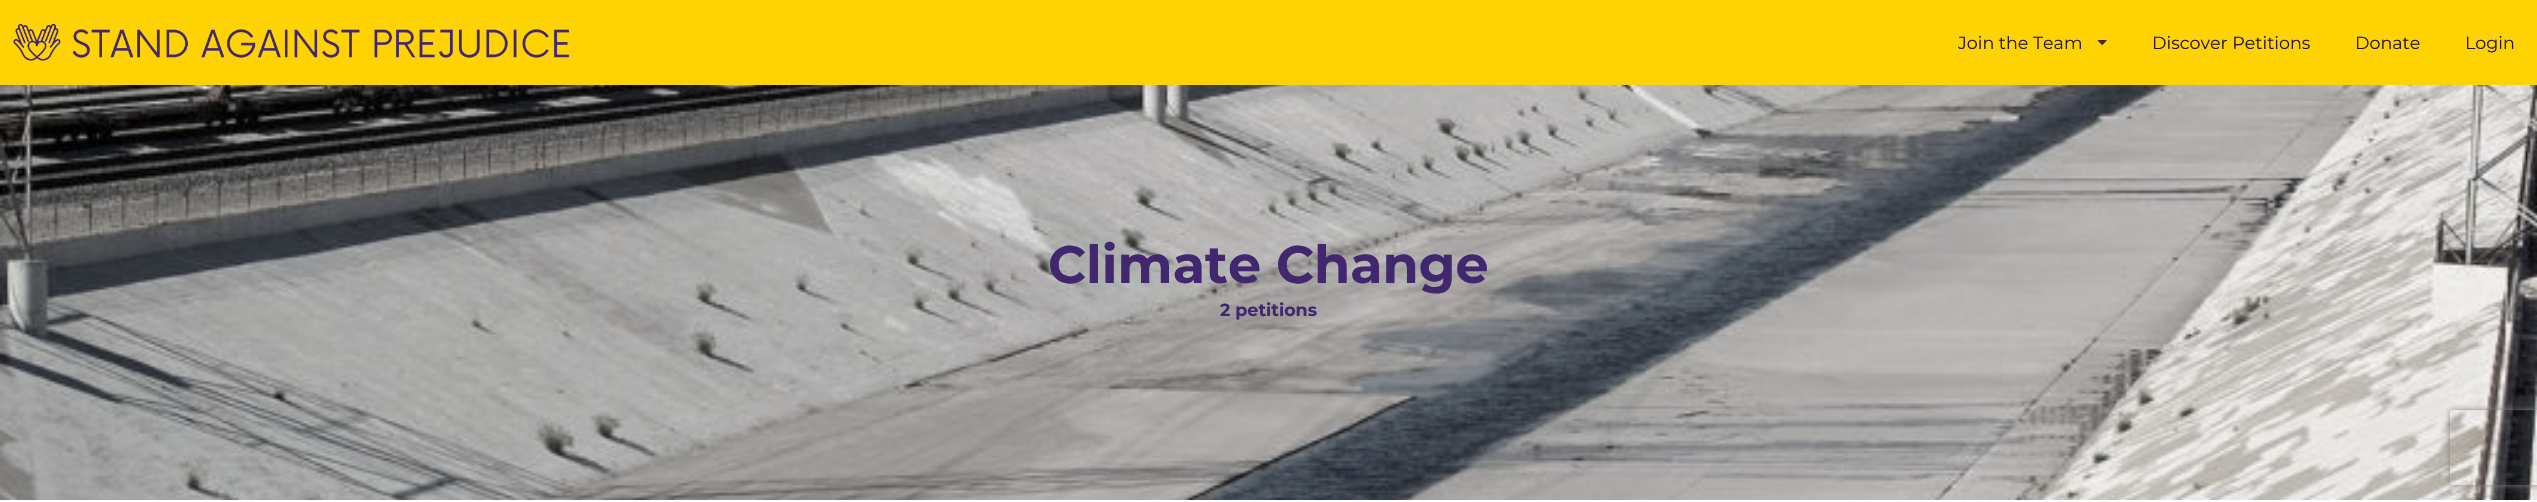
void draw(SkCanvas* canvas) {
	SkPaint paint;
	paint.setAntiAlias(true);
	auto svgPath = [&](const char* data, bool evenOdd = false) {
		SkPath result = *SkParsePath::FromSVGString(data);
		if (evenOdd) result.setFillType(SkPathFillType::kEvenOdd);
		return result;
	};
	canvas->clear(0xffffffff);
	paint.setColor(0xffffd201);
	canvas->drawRect(SkRect::MakeXYWH(0, 0, 2537, 85), paint);
	canvas->drawImageRect(SkImages::DeferredFromEncodedData(SkData::MakeFromFileName("img1.png")), SkRect::MakeXYWH(13, 23, 557, 38), SkSamplingOptions());
	SkFont f1(fontMgr->matchFamilyStyle("Montserrat", SkFontStyle::Normal()), 17.5);
	f1.setSubpixel(true);
	paint.setColor(0xff241840);
	canvas->drawString("Join the Team", 1958, 49, f1, paint);
	canvas->drawImageRect(SkImages::DeferredFromEncodedData(SkData::MakeFromFileName("img2.png")), SkRect::MakeXYWH(2097, 40, 10, 5), SkSamplingOptions());
	canvas->drawString("Discover Petitions", 2152, 49, f1, paint);
	canvas->drawString("Donate", 2355, 49, f1, paint);
	canvas->drawString("Login", 2465, 49, f1, paint);
	canvas->drawImageRect(SkImages::DeferredFromEncodedData(SkData::MakeFromFileName("img3.png")), SkRect::MakeXYWH(0, 85, 2537, 415), SkSamplingOptions());
	SkFont f2(fontMgr->matchFamilyStyle("Montserrat", SkFontStyle::Bold()), 52.5);
	f2.setSubpixel(true);
	paint.setColor(0xff41286e);
	canvas->drawString("Climate Change", 1048, 283, f2, paint);
	SkFont f3(fontMgr->matchFamilyStyle("Montserrat", SkFontStyle::Bold()), 17.5);
	f3.setSubpixel(true);
	canvas->drawString("2 petitions", 1220, 316, f3, paint);
	canvas->save();
	canvas->clipPath(svgPath("M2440 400H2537V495H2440ZM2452.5 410H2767.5C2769 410 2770 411 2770 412.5V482.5C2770 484 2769 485 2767.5 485H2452.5C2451 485 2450 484 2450 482.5V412.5C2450 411 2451 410 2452.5 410Z", true), true);
	paint.setColor(0xff808080);
	paint.setMaskFilter(SkMaskFilter::MakeBlur(kNormal_SkBlurStyle, 3));
	canvas->drawRoundRect(SkRect::MakeXYWH(2450, 410, 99, 75), 2.5, 2.5, paint);
	paint.setMaskFilter(nullptr);
	canvas->restore();
}
